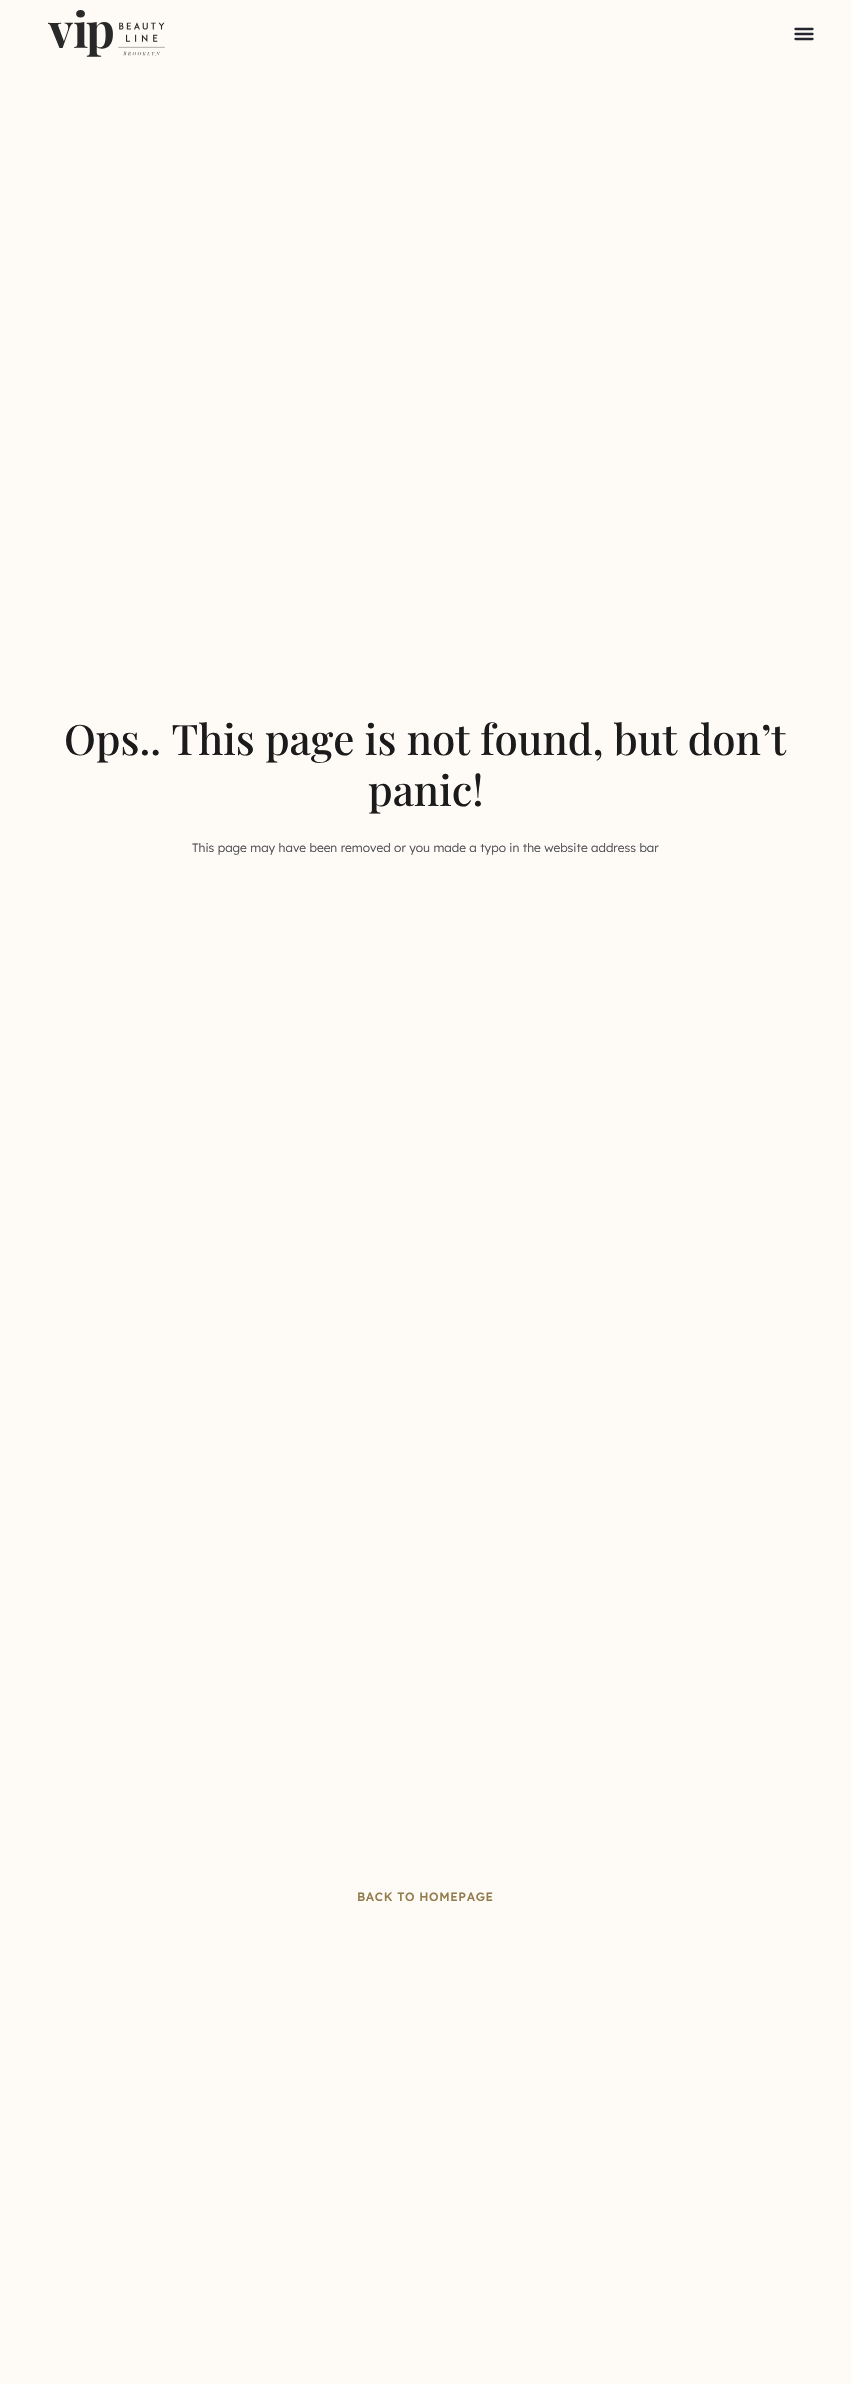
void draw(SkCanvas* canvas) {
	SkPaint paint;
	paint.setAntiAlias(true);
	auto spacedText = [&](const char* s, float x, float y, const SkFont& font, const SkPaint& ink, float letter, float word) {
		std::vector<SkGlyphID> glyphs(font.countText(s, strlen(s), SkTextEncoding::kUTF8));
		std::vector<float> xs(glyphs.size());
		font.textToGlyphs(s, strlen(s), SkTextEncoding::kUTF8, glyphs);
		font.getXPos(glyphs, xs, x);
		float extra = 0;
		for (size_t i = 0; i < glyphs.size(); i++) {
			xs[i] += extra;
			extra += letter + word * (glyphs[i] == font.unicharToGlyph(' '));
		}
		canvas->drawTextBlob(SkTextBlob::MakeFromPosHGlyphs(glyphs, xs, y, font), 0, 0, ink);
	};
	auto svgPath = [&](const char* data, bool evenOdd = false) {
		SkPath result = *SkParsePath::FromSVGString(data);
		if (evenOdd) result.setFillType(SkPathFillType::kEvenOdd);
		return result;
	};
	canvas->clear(0xfffefbf7);
	canvas->drawImageRect(SkImages::DeferredFromEncodedData(SkData::MakeFromFileName("img1.png")), SkRect::MakeXYWH(48, 10, 117, 47), SkSamplingOptions());
	paint.setStroke(true);
	paint.setStrokeWidth(2.3);
	paint.setStrokeCap(SkPaint::kRound_Cap);
	paint.setColor(0xff23262f);
	canvas->drawPath(svgPath("M795.5 29H812.5M795.5 34H812.5M795.5 39H812.5"), paint);
	SkFont f1(fontMgr->matchFamilyStyle("Playfair Display", SkFontStyle(500, SkFontStyle::kNormal_Width, SkFontStyle::kUpright_Slant)), 42);
	f1.setSubpixel(true);
	paint.setStroke(false);
	paint.setColor(0xff1b1b1b);
	canvas->drawString("Ops.. This page is not found, but don’t", 64, 755, f1, paint);
	canvas->drawString("panic!", 368, 806, f1, paint);
	SkFont f2(fontMgr->matchFamilyStyle("Lexend", SkFontStyle(300, SkFontStyle::kNormal_Width, SkFontStyle::kUpright_Slant)), 12);
	f2.setSubpixel(true);
	paint.setColor(0xff4d4e52);
	canvas->drawString("This page may have been removed or you made a typo in the website address bar", 192, 852, f2, paint);
	SkFont f3(fontMgr->matchFamilyStyle("Lexend", SkFontStyle(500, SkFontStyle::kNormal_Width, SkFontStyle::kUpright_Slant)), 12);
	f3.setSubpixel(true);
	paint.setColor(0xff927c4d);
	spacedText("BACK TO HOMEPAGE", 357, 1901, f3, paint, 0.6, 0);
}
